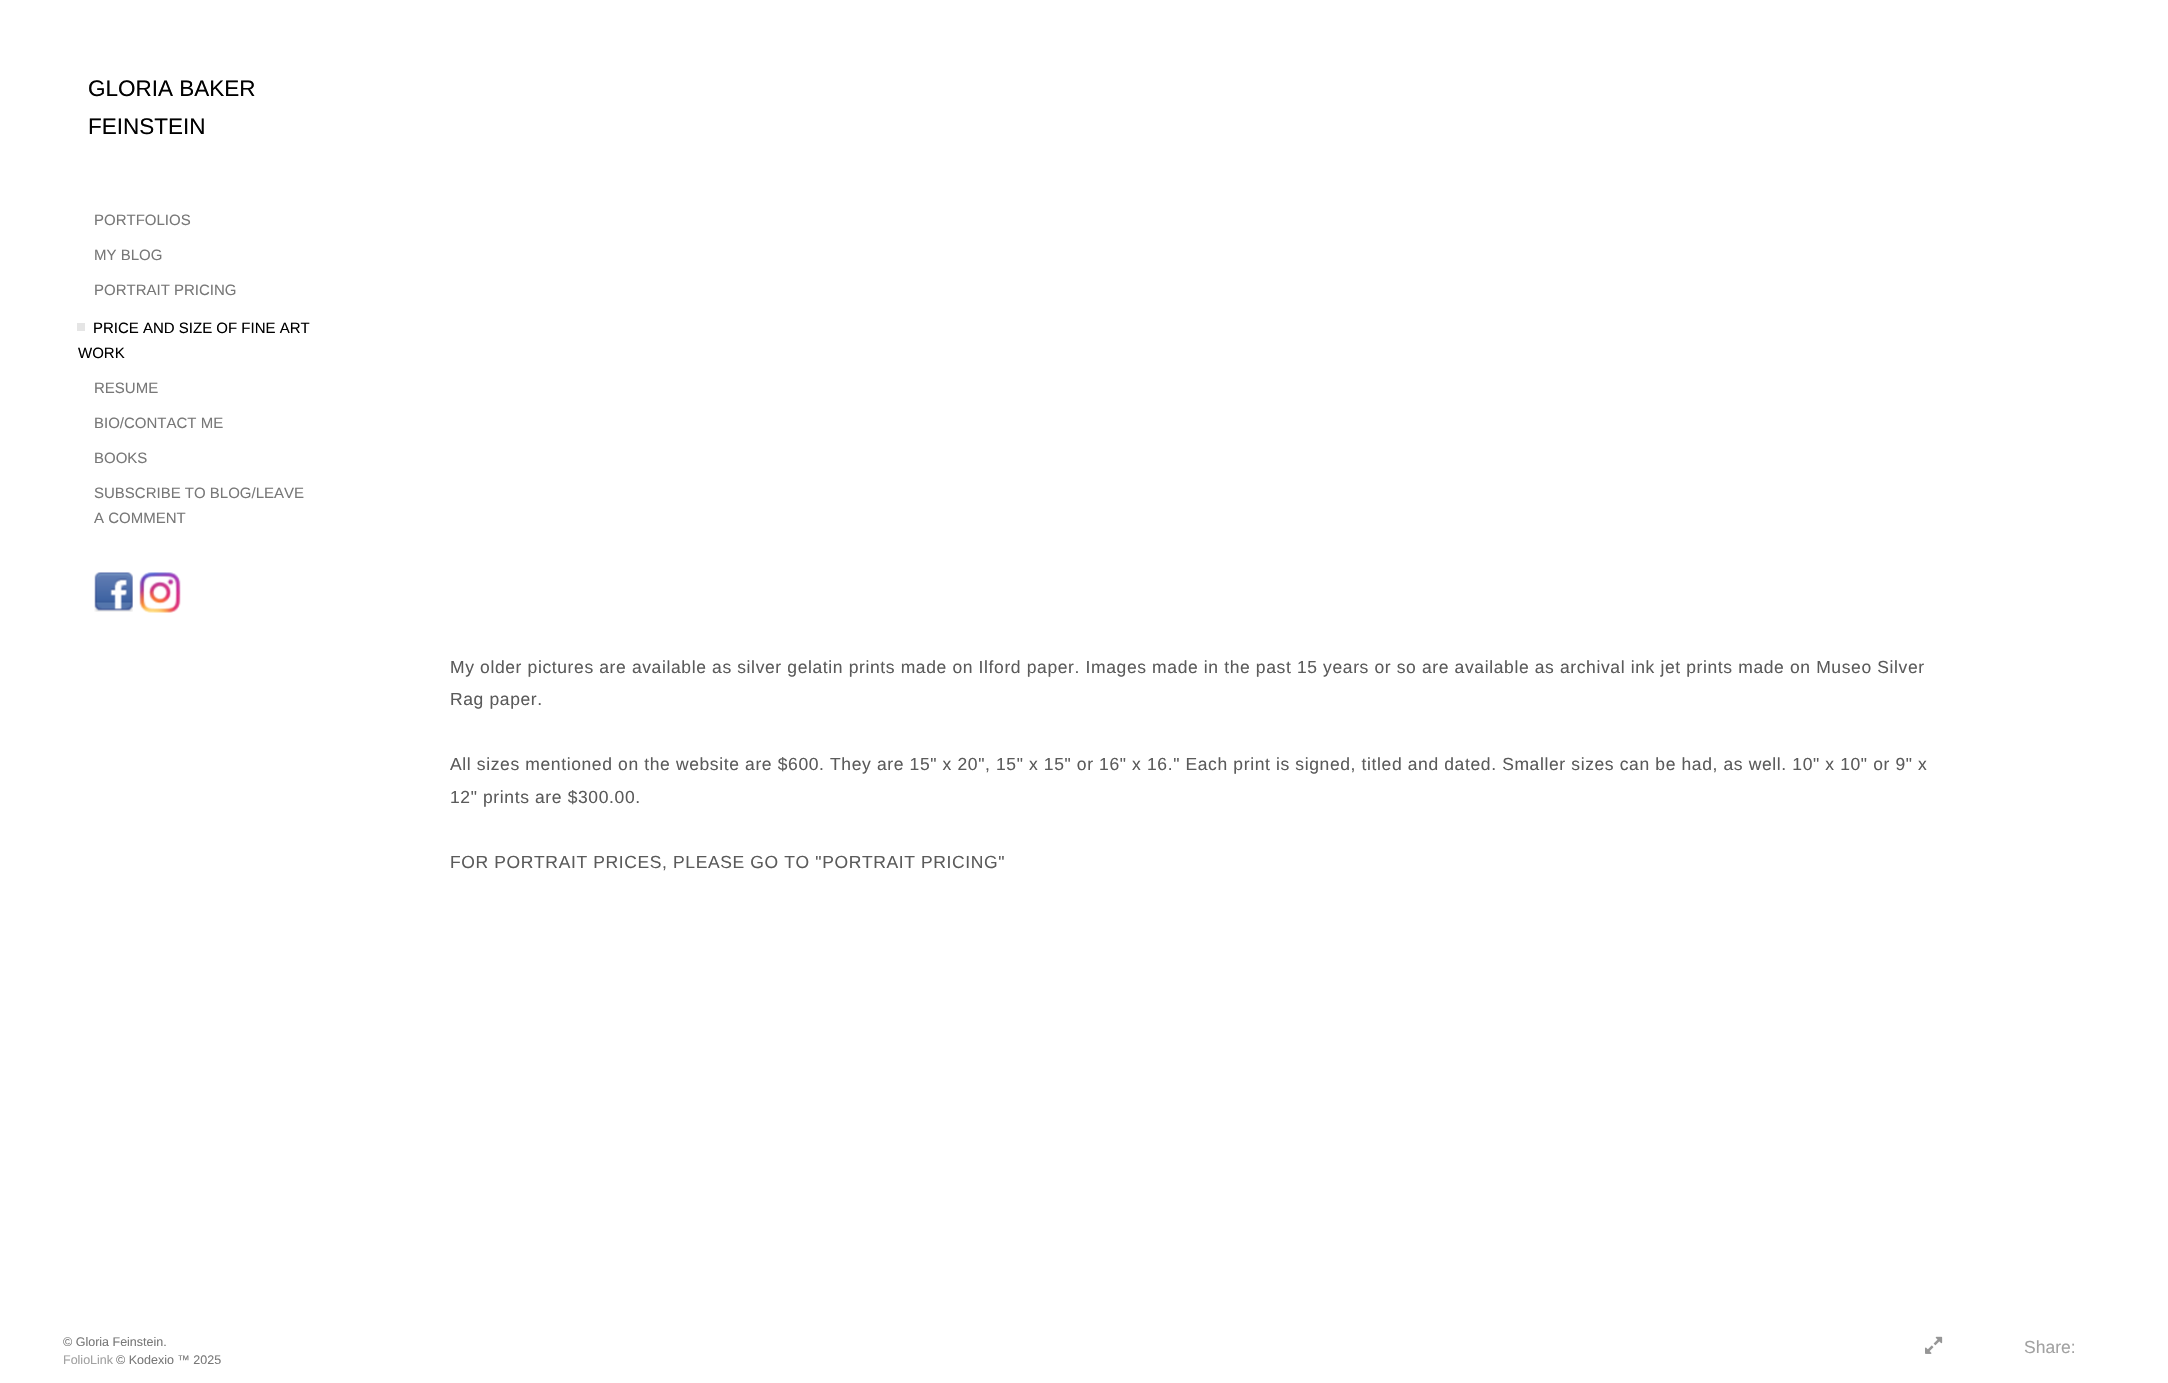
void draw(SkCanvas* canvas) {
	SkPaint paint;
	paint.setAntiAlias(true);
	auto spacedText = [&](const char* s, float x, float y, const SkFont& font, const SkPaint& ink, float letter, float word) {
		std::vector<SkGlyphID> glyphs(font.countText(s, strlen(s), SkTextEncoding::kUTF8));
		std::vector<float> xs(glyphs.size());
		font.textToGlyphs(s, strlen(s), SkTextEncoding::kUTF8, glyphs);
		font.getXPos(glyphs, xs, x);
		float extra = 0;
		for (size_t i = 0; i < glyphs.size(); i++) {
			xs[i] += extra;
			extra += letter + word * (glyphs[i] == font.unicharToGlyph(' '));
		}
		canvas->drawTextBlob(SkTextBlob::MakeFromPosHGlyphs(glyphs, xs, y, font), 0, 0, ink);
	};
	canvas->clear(0xffffffff);
	SkFont f1(fontMgr->matchFamilyStyle("Liberation Sans", SkFontStyle::Normal()), 22.5);
	f1.setSubpixel(true);
	paint.setColor(0xff000000);
	canvas->drawString("GLORIA BAKER", 88, 96, f1, paint);
	canvas->drawString("FEINSTEIN", 88, 134, f1, paint);
	SkFont f2(fontMgr->matchFamilyStyle("Liberation Sans", SkFontStyle::Normal()), 15);
	f2.setSubpixel(true);
	paint.setColor(0xff787878);
	canvas->drawString("PORTFOLIOS", 94, 225, f2, paint);
	canvas->drawString("MY BLOG", 94, 260, f2, paint);
	canvas->drawString("PORTRAIT PRICING", 94, 295, f2, paint);
	paint.setColor(0xffe5e5e5);
	canvas->drawRect(SkRect::MakeXYWH(77, 323, 8, 8), paint);
	paint.setColor(0xff000000);
	canvas->drawString("PRICE AND SIZE OF FINE ART", 93, 333, f2, paint);
	canvas->drawString("WORK", 78, 358, f2, paint);
	paint.setColor(0xff787878);
	canvas->drawString("RESUME", 94, 393, f2, paint);
	canvas->drawString("BIO/CONTACT ME", 94, 428, f2, paint);
	canvas->drawString("BOOKS", 94, 463, f2, paint);
	canvas->drawString("SUBSCRIBE TO BLOG/LEAVE", 94, 498, f2, paint);
	canvas->drawString("A COMMENT", 94, 523, f2, paint);
	canvas->drawImageRect(SkImages::DeferredFromEncodedData(SkData::MakeFromFileName("img1.png")), SkRect::MakeXYWH(94, 572, 39, 40), SkSamplingOptions());
	canvas->drawImageRect(SkImages::DeferredFromEncodedData(SkData::MakeFromFileName("img2.png")), SkRect::MakeXYWH(139, 572, 42, 41), SkSamplingOptions());
	SkFont f3(fontMgr->matchFamilyStyle("Liberation Sans", SkFontStyle::Normal()), 17.5);
	f3.setSubpixel(true);
	paint.setColor(0xff5b5b5b);
	spacedText("My older pictures are available as silver gelatin prints made on Ilford paper. Images made in the past 15 years or so are available as archival ink jet prints made on Museo Silver", 450, 673, f3, paint, 0.62, 0);
	spacedText("Rag paper.", 450, 705, f3, paint, 0.62, 0);
	spacedText("All sizes mentioned on the website are $600. They are 15\" x 20\", 15\" x 15\" or 16\" x 16.\" Each print is signed, titled and dated. Smaller sizes can be had, as well. 10\" x 10\" or 9\" x", 450, 770, f3, paint, 0.62, 0);
	spacedText("12\" prints are $300.00.", 450, 803, f3, paint, 0.62, 0);
	spacedText("FOR PORTRAIT PRICES, PLEASE GO TO \"PORTRAIT PRICING\"", 450, 868, f3, paint, 0.62, 0);
	SkFont f4(fontMgr->matchFamilyStyle("Liberation Sans", SkFontStyle::Normal()), 12.5);
	f4.setSubpixel(true);
	paint.setColor(0xff787878);
	canvas->drawString("© Gloria Feinstein.", 63, 1346, f4, paint);
	paint.setColor(0xffa2a2a2);
	canvas->drawString("FolioLink", 63, 1364, f4, paint);
	paint.setColor(0xff787878);
	canvas->drawString("© Kodexio ™ 2025", 116, 1364, f4, paint);
	canvas->drawImageRect(SkImages::DeferredFromEncodedData(SkData::MakeFromFileName("img3.png")), SkRect::MakeXYWH(1925, 1336, 18, 18), SkSamplingOptions());
	paint.setColor(0xffa2a2a2);
	canvas->drawString("Share:", 2024, 1353, f3, paint);
}
